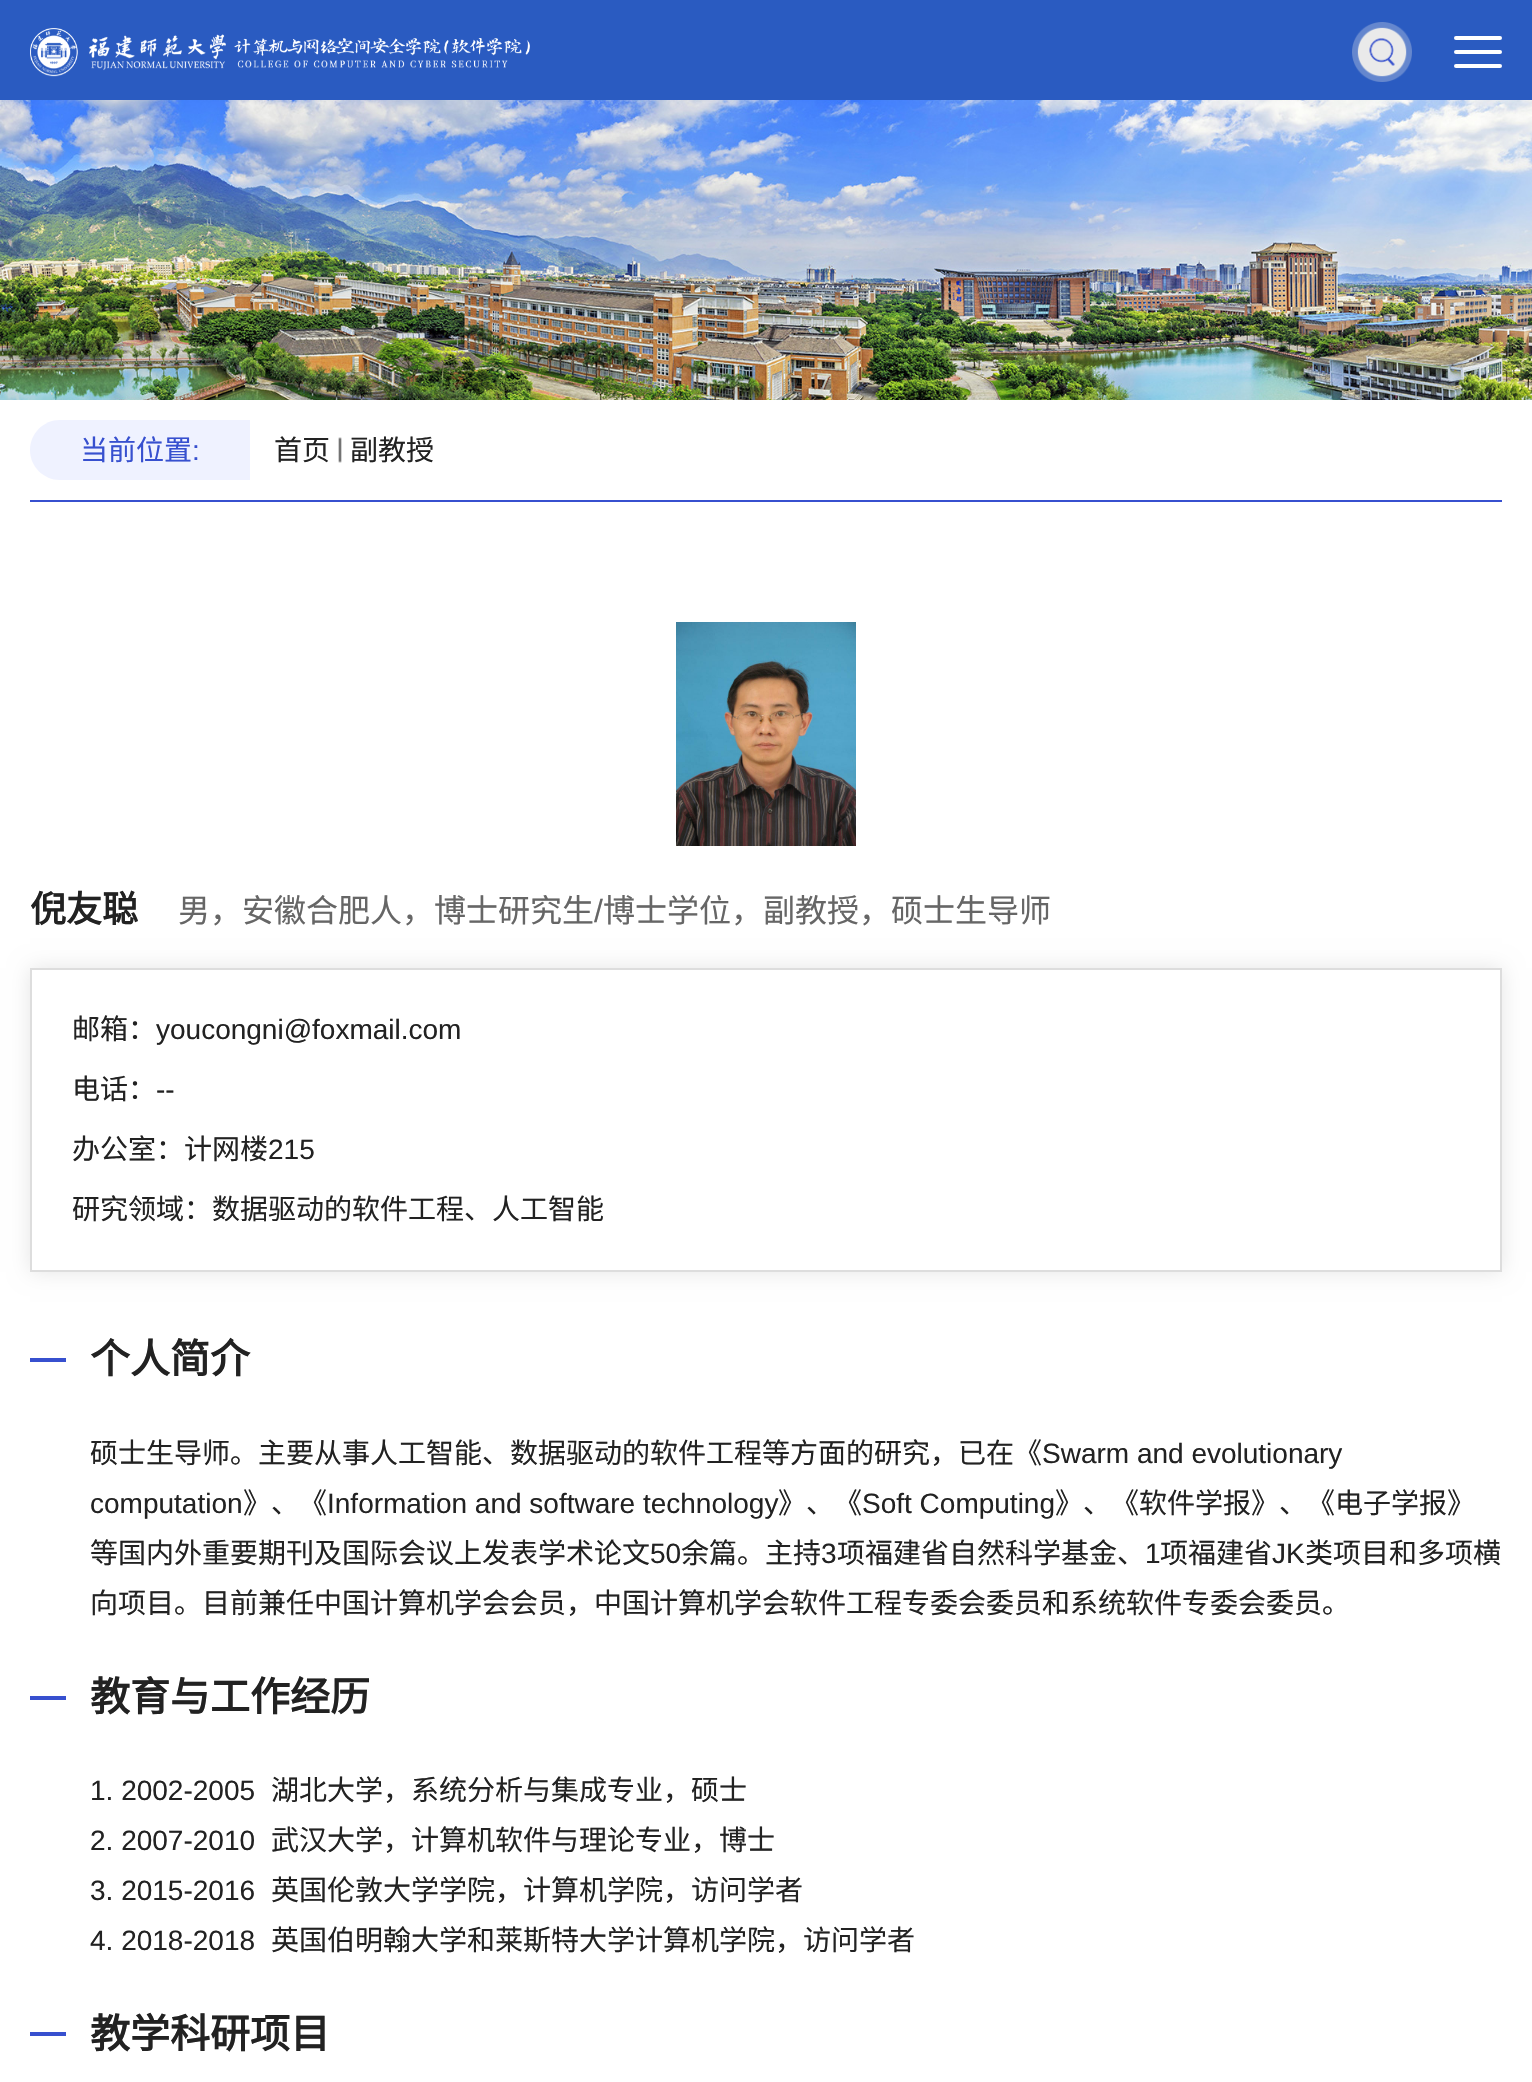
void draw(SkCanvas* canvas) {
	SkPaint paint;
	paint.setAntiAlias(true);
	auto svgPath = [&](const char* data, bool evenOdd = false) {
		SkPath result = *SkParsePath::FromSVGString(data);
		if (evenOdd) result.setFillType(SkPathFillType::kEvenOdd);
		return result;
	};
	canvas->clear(0xffffffff);
	paint.setColor(0xff2a5bc1);
	canvas->drawRect(SkRect::MakeXYWH(0, 0, 1532, 100), paint);
	canvas->drawImageRect(SkImages::DeferredFromEncodedData(SkData::MakeFromFileName("img1.png")), SkRect::MakeXYWH(30, 28, 500, 49), SkSamplingOptions());
	canvas->drawImageRect(SkImages::DeferredFromEncodedData(SkData::MakeFromFileName("img2.png")), SkRect::MakeXYWH(1352, 22, 60, 60), SkSamplingOptions());
	paint.setColor(0xffffffff);
	canvas->drawRoundRect(SkRect::MakeXYWH(1454, 36, 48, 4), 2, 2, paint);
	canvas->drawRoundRect(SkRect::MakeXYWH(1454, 50, 48, 4), 2, 2, paint);
	canvas->drawRoundRect(SkRect::MakeXYWH(1454, 64, 48, 4), 2, 2, paint);
	canvas->drawImageRect(SkImages::DeferredFromEncodedData(SkData::MakeFromFileName("img3.png")), SkRect::MakeXYWH(0, 100, 1532, 300), SkSamplingOptions());
	paint.setColor(0xff3750cf);
	canvas->drawRect(SkRect::MakeXYWH(30, 500, 1472, 2), paint);
	paint.setColor(0xffeff2ff);
	canvas->drawPath(svgPath("M60 420H250V480H60C43.5 480 30 466.5 30 450C30 433.5 43.5 420 60 420Z"), paint);
	SkFont f1(fontMgr->matchFamilyStyle("Noto Sans CJK SC", SkFontStyle::Normal()), 28);
	f1.setSubpixel(true);
	paint.setColor(0xff3750cf);
	canvas->drawString("当前位置", 80, 460, f1, paint);
	SkFont f2(fontMgr->matchFamilyStyle("Liberation Sans", SkFontStyle::Normal()), 28);
	f2.setSubpixel(true);
	canvas->drawString(":", 192, 460, f2, paint);
	paint.setColor(0xff222222);
	canvas->drawString("首页", 274, 460, f1, paint);
	canvas->drawImageRect(SkImages::DeferredFromEncodedData(SkData::MakeFromFileName("img4.png")), SkRect::MakeXYWH(338, 437, 4, 26), SkSamplingOptions());
	canvas->drawString("副教授", 350, 460, f1, paint);
	canvas->drawImageRect(SkImages::DeferredFromEncodedData(SkData::MakeFromFileName("img5.png")), SkRect::MakeXYWH(676, 622, 180, 224), SkSamplingOptions());
	SkFont f3(fontMgr->matchFamilyStyle("Noto Sans CJK SC", SkFontStyle::Bold()), 36);
	f3.setSubpixel(true);
	canvas->drawString("倪友聪", 30, 922, f3, paint);
	SkFont f4(fontMgr->matchFamilyStyle("Noto Sans CJK SC", SkFontStyle::Normal()), 32);
	f4.setSubpixel(true);
	paint.setColor(0xff666666);
	canvas->drawString("男，安徽合肥人，博士研究生", 178, 922, f4, paint);
	SkFont f5(fontMgr->matchFamilyStyle("Liberation Sans", SkFontStyle::Normal()), 32);
	f5.setSubpixel(true);
	canvas->drawString("/", 594, 922, f5, paint);
	canvas->drawString("博士学位，副教授，硕士生导师", 603, 922, f4, paint);
	canvas->save();
	canvas->clipPath(svgPath("M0 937H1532V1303H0ZM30 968H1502V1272H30Z", true), true);
	paint.setColor(0x1a000000);
	paint.setMaskFilter(SkMaskFilter::MakeBlur(kNormal_SkBlurStyle, 10));
	canvas->drawRect(SkRect::MakeXYWH(30, 968, 1472, 304), paint);
	paint.setMaskFilter(nullptr);
	canvas->restore();
	paint.setStroke(true);
	paint.setStrokeWidth(2);
	paint.setColor(0xffdddddd);
	canvas->drawRect(SkRect::MakeXYWH(31, 969, 1470, 302), paint);
	paint.setStroke(false);
	paint.setColor(0xff222222);
	canvas->drawString("邮箱：", 72, 1039, f1, paint);
	canvas->drawString("youcongni@foxmail.com", 156, 1039, f2, paint);
	canvas->drawString("电话：", 72, 1099, f1, paint);
	canvas->drawString("--", 156, 1099, f2, paint);
	canvas->drawString("办公室：计网楼", 72, 1159, f1, paint);
	canvas->drawString("215", 268, 1159, f2, paint);
	canvas->drawString("研究领域：数据驱动的软件工程、人工智能", 72, 1219, f1, paint);
	paint.setColor(0xff3750cf);
	canvas->drawRect(SkRect::MakeXYWH(30, 1358, 36, 4), paint);
	SkFont f6(fontMgr->matchFamilyStyle("Noto Sans CJK SC", SkFontStyle::Bold()), 40);
	f6.setSubpixel(true);
	paint.setColor(0xff222222);
	canvas->drawString("个人简介", 90, 1373, f6, paint);
	canvas->drawString("硕士生导师。主要从事人工智能、数据驱动的软件工程等方面的研究，已在《", 90, 1463, f1, paint);
	canvas->drawString("Swarm and evolutionary", 1042, 1463, f2, paint);
	canvas->drawString("computation", 90, 1513, f2, paint);
	canvas->drawString("》、《", 243, 1513, f1, paint);
	canvas->drawString("Information and software technology", 327, 1513, f2, paint);
	canvas->drawString("》、《", 778, 1513, f1, paint);
	canvas->drawString("Soft Computing", 862, 1513, f2, paint);
	canvas->drawString("》、《软件学报》、《电子学报》", 1055, 1513, f1, paint);
	canvas->drawString("等国内外重要期刊及国际会议上发表学术论文", 90, 1563, f1, paint);
	canvas->drawString("50", 650, 1563, f2, paint);
	canvas->drawString("余篇。主持", 681, 1563, f1, paint);
	canvas->drawString("3", 821, 1563, f2, paint);
	canvas->drawString("项福建省自然科学基金、", 837, 1563, f1, paint);
	canvas->drawString("1", 1145, 1563, f2, paint);
	canvas->drawString("项福建省", 1160, 1563, f1, paint);
	canvas->drawString("JK", 1272, 1563, f2, paint);
	canvas->drawString("类项目和多项横", 1305, 1563, f1, paint);
	canvas->drawString("向项目。目前兼任中国计算机学会会员，中国计算机学会软件工程专委会委员和系统软件专委会委员。", 90, 1613, f1, paint);
	paint.setColor(0xff3750cf);
	canvas->drawRect(SkRect::MakeXYWH(30, 1696, 36, 4), paint);
	paint.setColor(0xff222222);
	canvas->drawString("教育与工作经历", 90, 1711, f6, paint);
	canvas->drawString("1. 2002-2005", 90, 1800, f2, paint);
	canvas->drawString("湖北大学，系统分析与集成专业，硕士", 271, 1800, f1, paint);
	canvas->drawString("2. 2007-2010", 90, 1850, f2, paint);
	canvas->drawString("武汉大学，计算机软件与理论专业，博士", 271, 1850, f1, paint);
	canvas->drawString("3. 2015-2016", 90, 1900, f2, paint);
	canvas->drawString("英国伦敦大学学院，计算机学院，访问学者", 271, 1900, f1, paint);
	canvas->drawString("4. 2018-2018", 90, 1950, f2, paint);
	canvas->drawString("英国伯明翰大学和莱斯特大学计算机学院，访问学者", 271, 1950, f1, paint);
	paint.setColor(0xff3750cf);
	canvas->drawRect(SkRect::MakeXYWH(30, 2032, 36, 4), paint);
	paint.setColor(0xff222222);
	canvas->drawString("教学科研项目", 90, 2048, f6, paint);
}
